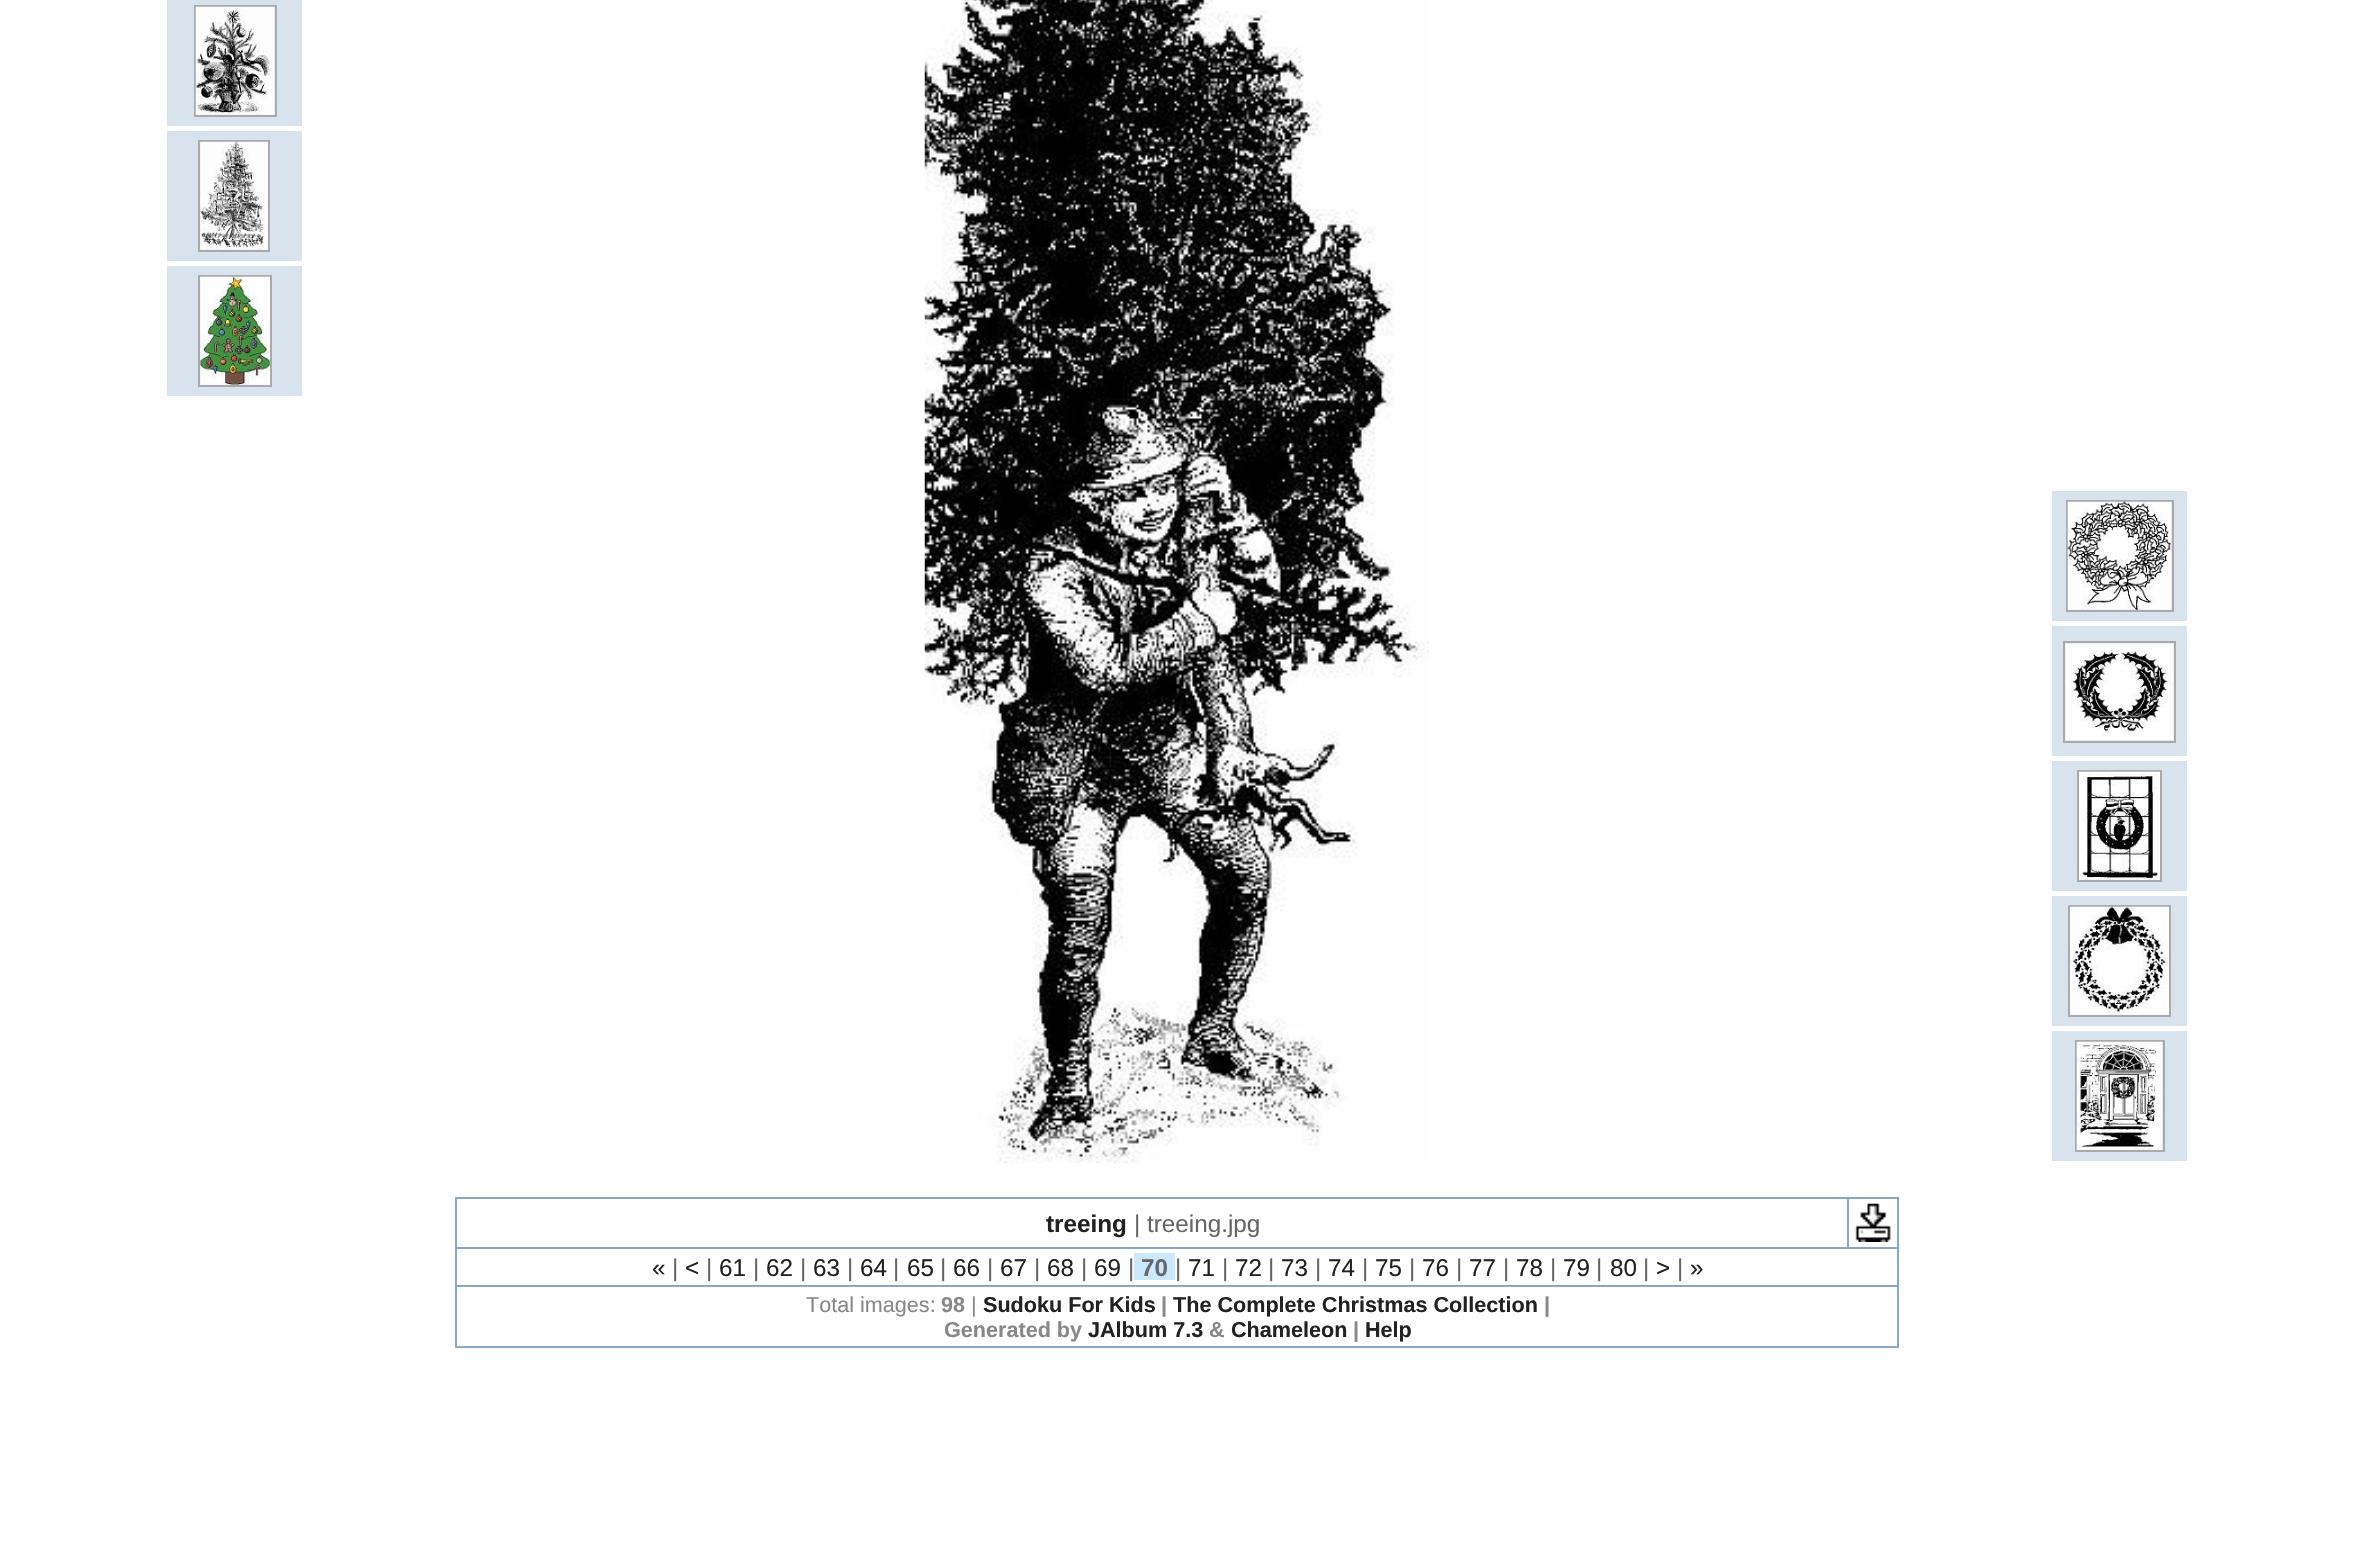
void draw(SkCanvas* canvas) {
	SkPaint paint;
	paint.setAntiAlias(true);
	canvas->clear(0xffffffff);
	paint.setColor(0xffd8e3ed);
	canvas->drawRect(SkRect::MakeXYWH(167, 0, 135, 126), paint);
	paint.setStroke(true);
	paint.setStrokeWidth(2);
	paint.setColor(0xffaaaaaa);
	canvas->drawRect(SkRect::MakeXYWH(195, 6, 81, 110), paint);
	canvas->drawImageRect(SkImages::DeferredFromEncodedData(SkData::MakeFromFileName("img1.png")), SkRect::MakeXYWH(195, 6, 80, 109), SkSamplingOptions());
	paint.setStroke(false);
	paint.setColor(0xffd8e3ed);
	canvas->drawRect(SkRect::MakeXYWH(167, 131, 135, 130), paint);
	paint.setStroke(true);
	paint.setColor(0xffaaaaaa);
	canvas->drawRect(SkRect::MakeXYWH(199, 141, 70, 110), paint);
	canvas->drawImageRect(SkImages::DeferredFromEncodedData(SkData::MakeFromFileName("img2.png")), SkRect::MakeXYWH(200, 141, 68, 109), SkSamplingOptions());
	paint.setStroke(false);
	paint.setColor(0xffd8e3ed);
	canvas->drawRect(SkRect::MakeXYWH(167, 266, 135, 130), paint);
	paint.setStroke(true);
	paint.setColor(0xffaaaaaa);
	canvas->drawRect(SkRect::MakeXYWH(199, 276, 72, 110), paint);
	canvas->drawImageRect(SkImages::DeferredFromEncodedData(SkData::MakeFromFileName("img3.png")), SkRect::MakeXYWH(200, 276, 70, 109), SkSamplingOptions());
	canvas->drawImageRect(SkImages::DeferredFromEncodedData(SkData::MakeFromFileName("img4.png")), SkRect::MakeXYWH(924, 0, 505, 1164), SkSamplingOptions());
	paint.setStroke(false);
	paint.setColor(0xffd8e3ed);
	canvas->drawRect(SkRect::MakeXYWH(2052, 491, 135, 130), paint);
	paint.setStroke(true);
	paint.setColor(0xffaaaaaa);
	canvas->drawRect(SkRect::MakeXYWH(2067, 501, 106, 110), paint);
	canvas->drawImageRect(SkImages::DeferredFromEncodedData(SkData::MakeFromFileName("img5.png")), SkRect::MakeXYWH(2067, 501, 105, 109), SkSamplingOptions());
	paint.setStroke(false);
	paint.setColor(0xffd8e3ed);
	canvas->drawRect(SkRect::MakeXYWH(2052, 626, 135, 130), paint);
	paint.setStroke(true);
	paint.setColor(0xffaaaaaa);
	canvas->drawRect(SkRect::MakeXYWH(2064, 642, 111, 100), paint);
	canvas->drawImageRect(SkImages::DeferredFromEncodedData(SkData::MakeFromFileName("img6.png")), SkRect::MakeXYWH(2065, 643, 109, 98), SkSamplingOptions());
	paint.setStroke(false);
	paint.setColor(0xffd8e3ed);
	canvas->drawRect(SkRect::MakeXYWH(2052, 761, 135, 130), paint);
	paint.setStroke(true);
	paint.setColor(0xffaaaaaa);
	canvas->drawRect(SkRect::MakeXYWH(2078, 771, 83, 110), paint);
	canvas->drawImageRect(SkImages::DeferredFromEncodedData(SkData::MakeFromFileName("img7.png")), SkRect::MakeXYWH(2079, 771, 81, 109), SkSamplingOptions());
	paint.setStroke(false);
	paint.setColor(0xffd8e3ed);
	canvas->drawRect(SkRect::MakeXYWH(2052, 896, 135, 130), paint);
	paint.setStroke(true);
	paint.setColor(0xffaaaaaa);
	canvas->drawRect(SkRect::MakeXYWH(2069, 906, 101, 110), paint);
	canvas->drawImageRect(SkImages::DeferredFromEncodedData(SkData::MakeFromFileName("img8.png")), SkRect::MakeXYWH(2070, 906, 99, 109), SkSamplingOptions());
	paint.setStroke(false);
	paint.setColor(0xffd8e3ed);
	canvas->drawRect(SkRect::MakeXYWH(2052, 1031, 135, 130), paint);
	paint.setStroke(true);
	paint.setColor(0xffaaaaaa);
	canvas->drawRect(SkRect::MakeXYWH(2076, 1041, 88, 110), paint);
	canvas->drawImageRect(SkImages::DeferredFromEncodedData(SkData::MakeFromFileName("img9.png")), SkRect::MakeXYWH(2076, 1041, 87, 109), SkSamplingOptions());
	paint.setStroke(false);
	paint.setColor(0xff88a8ca);
	canvas->drawRect(SkRect::MakeXYWH(455, 1197, 1444, 2), paint);
	canvas->drawRect(SkRect::MakeXYWH(1897, 1197, 2, 151), paint);
	canvas->drawRect(SkRect::MakeXYWH(455, 1346, 1444, 2), paint);
	canvas->drawRect(SkRect::MakeXYWH(455, 1197, 2, 151), paint);
	SkFont f1(fontMgr->matchFamilyStyle("Liberation Sans", SkFontStyle::Bold()), 24.25);
	f1.setSubpixel(true);
	paint.setColor(0xff222222);
	canvas->drawString("treeing", 1046, 1232, f1, paint);
	SkFont f2(fontMgr->matchFamilyStyle("Liberation Sans", SkFontStyle::Normal()), 24.25);
	f2.setSubpixel(true);
	paint.setColor(0xff666666);
	canvas->drawString("| treeing.jpg", 1134, 1232, f2, paint);
	paint.setColor(0xff88a8ca);
	canvas->drawRect(SkRect::MakeXYWH(455, 1247, 1444, 2), paint);
	canvas->drawRect(SkRect::MakeXYWH(1847, 1197, 2, 52), paint);
	canvas->drawImageRect(SkImages::DeferredFromEncodedData(SkData::MakeFromFileName("img10.png")), SkRect::MakeXYWH(1855, 1203, 36, 39), SkSamplingOptions());
	paint.setColor(0xff222222);
	canvas->drawString("«", 652, 1276, f2, paint);
	paint.setColor(0xff666666);
	canvas->drawString("|", 672, 1276, f2, paint);
	paint.setColor(0xff222222);
	canvas->drawString("<", 685, 1276, f2, paint);
	paint.setColor(0xff666666);
	canvas->drawString("|", 706, 1276, f2, paint);
	paint.setColor(0xff222222);
	canvas->drawString("61", 719, 1276, f2, paint);
	paint.setColor(0xff666666);
	canvas->drawString("|", 753, 1276, f2, paint);
	paint.setColor(0xff222222);
	canvas->drawString("62", 766, 1276, f2, paint);
	paint.setColor(0xff666666);
	canvas->drawString("|", 800, 1276, f2, paint);
	paint.setColor(0xff222222);
	canvas->drawString("63", 813, 1276, f2, paint);
	paint.setColor(0xff666666);
	canvas->drawString("|", 847, 1276, f2, paint);
	paint.setColor(0xff222222);
	canvas->drawString("64", 860, 1276, f2, paint);
	paint.setColor(0xff666666);
	canvas->drawString("|", 893, 1276, f2, paint);
	paint.setColor(0xff222222);
	canvas->drawString("65", 907, 1276, f2, paint);
	paint.setColor(0xff666666);
	canvas->drawString("|", 940, 1276, f2, paint);
	paint.setColor(0xff222222);
	canvas->drawString("66", 953, 1276, f2, paint);
	paint.setColor(0xff666666);
	canvas->drawString("|", 987, 1276, f2, paint);
	paint.setColor(0xff222222);
	canvas->drawString("67", 1000, 1276, f2, paint);
	paint.setColor(0xff666666);
	canvas->drawString("|", 1034, 1276, f2, paint);
	paint.setColor(0xff222222);
	canvas->drawString("68", 1047, 1276, f2, paint);
	paint.setColor(0xff666666);
	canvas->drawString("|", 1081, 1276, f2, paint);
	paint.setColor(0xff222222);
	canvas->drawString("69", 1094, 1276, f2, paint);
	paint.setColor(0xff666666);
	canvas->drawString("|", 1128, 1276, f2, paint);
	paint.setColor(0xffcce8ff);
	canvas->drawRect(SkRect::MakeXYWH(1134, 1253, 41, 27), paint);
	paint.setColor(0xff666666);
	canvas->drawString("70", 1141, 1276, f1, paint);
	canvas->drawString("|", 1175, 1276, f2, paint);
	paint.setColor(0xff222222);
	canvas->drawString("71", 1188, 1276, f2, paint);
	paint.setColor(0xff666666);
	canvas->drawString("|", 1222, 1276, f2, paint);
	paint.setColor(0xff222222);
	canvas->drawString("72", 1235, 1276, f2, paint);
	paint.setColor(0xff666666);
	canvas->drawString("|", 1268, 1276, f2, paint);
	paint.setColor(0xff222222);
	canvas->drawString("73", 1281, 1276, f2, paint);
	paint.setColor(0xff666666);
	canvas->drawString("|", 1315, 1276, f2, paint);
	paint.setColor(0xff222222);
	canvas->drawString("74", 1328, 1276, f2, paint);
	paint.setColor(0xff666666);
	canvas->drawString("|", 1362, 1276, f2, paint);
	paint.setColor(0xff222222);
	canvas->drawString("75", 1375, 1276, f2, paint);
	paint.setColor(0xff666666);
	canvas->drawString("|", 1409, 1276, f2, paint);
	paint.setColor(0xff222222);
	canvas->drawString("76", 1422, 1276, f2, paint);
	paint.setColor(0xff666666);
	canvas->drawString("|", 1456, 1276, f2, paint);
	paint.setColor(0xff222222);
	canvas->drawString("77", 1469, 1276, f2, paint);
	paint.setColor(0xff666666);
	canvas->drawString("|", 1503, 1276, f2, paint);
	paint.setColor(0xff222222);
	canvas->drawString("78", 1516, 1276, f2, paint);
	paint.setColor(0xff666666);
	canvas->drawString("|", 1550, 1276, f2, paint);
	paint.setColor(0xff222222);
	canvas->drawString("79", 1563, 1276, f2, paint);
	paint.setColor(0xff666666);
	canvas->drawString("|", 1596, 1276, f2, paint);
	paint.setColor(0xff222222);
	canvas->drawString("80", 1610, 1276, f2, paint);
	paint.setColor(0xff666666);
	canvas->drawString("|", 1643, 1276, f2, paint);
	paint.setColor(0xff222222);
	canvas->drawString(">", 1656, 1276, f2, paint);
	paint.setColor(0xff666666);
	canvas->drawString("|", 1677, 1276, f2, paint);
	paint.setColor(0xff222222);
	canvas->drawString("»", 1690, 1276, f2, paint);
	paint.setColor(0xff88a8ca);
	canvas->drawRect(SkRect::MakeXYWH(455, 1285, 1444, 2), paint);
	SkFont f3(fontMgr->matchFamilyStyle("Liberation Sans", SkFontStyle::Normal()), 21.6);
	f3.setSubpixel(true);
	paint.setColor(0xff888888);
	canvas->drawString("Total images:", 806, 1312, f3, paint);
	SkFont f4(fontMgr->matchFamilyStyle("Liberation Sans", SkFontStyle::Bold()), 21.6);
	f4.setSubpixel(true);
	canvas->drawString("98", 941, 1312, f4, paint);
	canvas->drawString("|", 971, 1312, f3, paint);
	paint.setColor(0xff222222);
	canvas->drawString("Sudoku For Kids", 983, 1312, f4, paint);
	paint.setColor(0xff888888);
	canvas->drawString("|", 1161, 1312, f4, paint);
	paint.setColor(0xff222222);
	canvas->drawString("The Complete Christmas Collection", 1173, 1312, f4, paint);
	paint.setColor(0xff888888);
	canvas->drawString("|", 1544, 1312, f4, paint);
	canvas->drawString("Generated by", 944, 1337, f4, paint);
	paint.setColor(0xff222222);
	canvas->drawString("JAlbum 7.3", 1088, 1337, f4, paint);
	paint.setColor(0xff888888);
	canvas->drawString("&", 1209, 1337, f4, paint);
	paint.setColor(0xff222222);
	canvas->drawString("Chameleon", 1231, 1337, f4, paint);
	paint.setColor(0xff888888);
	canvas->drawString("|", 1353, 1337, f4, paint);
	paint.setColor(0xff222222);
	canvas->drawString("Help", 1365, 1337, f4, paint);
}
